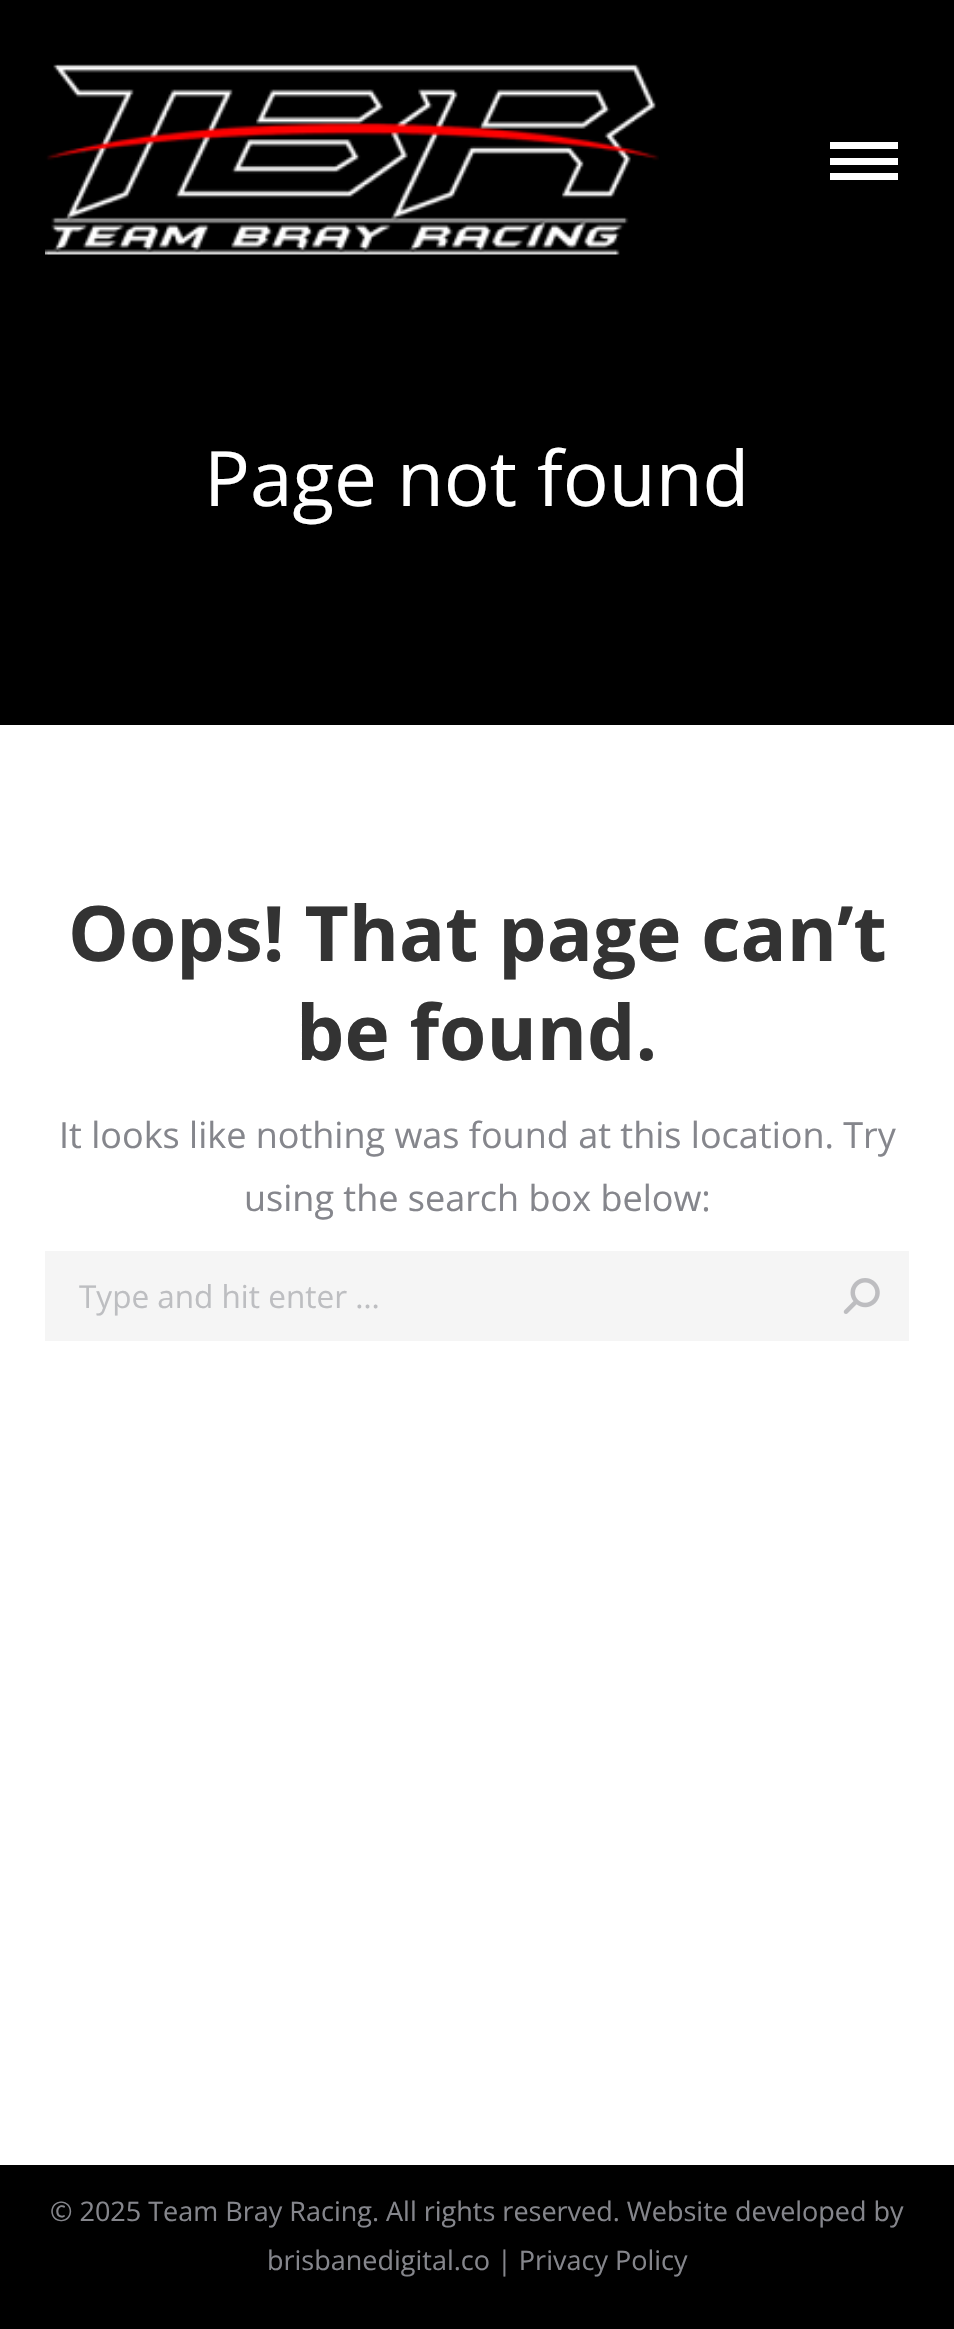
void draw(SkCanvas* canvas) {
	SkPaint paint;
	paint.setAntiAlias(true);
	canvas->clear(0xff000000);
	paint.setColor(0xffffffff);
	canvas->drawRect(SkRect::MakeXYWH(0, 725, 954, 1440), paint);
	canvas->drawImageRect(SkImages::DeferredFromEncodedData(SkData::MakeFromFileName("img1.png")), SkRect::MakeXYWH(45, 64, 614, 191), SkSamplingOptions());
	canvas->drawRect(SkRect::MakeXYWH(830, 142, 68, 7), paint);
	canvas->drawRect(SkRect::MakeXYWH(830, 158, 68, 7), paint);
	canvas->drawRect(SkRect::MakeXYWH(830, 173, 68, 7), paint);
	SkFont f1(fontMgr->matchFamilyStyle("Open Sans", SkFontStyle::Normal()), 76.5);
	f1.setSubpixel(true);
	canvas->drawString("Page not found", 204, 506, f1, paint);
	SkFont f2(fontMgr->matchFamilyStyle("Open Sans", SkFontStyle::Bold()), 76.5);
	f2.setSubpixel(true);
	paint.setColor(0xff333333);
	canvas->drawString("Oops! That page can’t", 68, 961, f2, paint);
	canvas->drawString("be found.", 296, 1060, f2, paint);
	SkFont f3(fontMgr->matchFamilyStyle("Open Sans", SkFontStyle::Normal()), 36);
	f3.setSubpixel(true);
	paint.setColor(0xff85868c);
	canvas->drawString("It looks like nothing was found at this location. Try", 59, 1148, f3, paint);
	canvas->drawString("using the search box below:", 244, 1211, f3, paint);
	paint.setColor(0xfff5f5f5);
	canvas->drawRect(SkRect::MakeXYWH(45, 1251, 864, 90), paint);
	SkFont f4(fontMgr->matchFamilyStyle("Open Sans", SkFontStyle::Normal()), 31.5);
	f4.setSubpixel(true);
	paint.setColor(0xffbdbec1);
	canvas->drawString("Type and hit enter …", 79, 1308, f4, paint);
	canvas->drawImageRect(SkImages::DeferredFromEncodedData(SkData::MakeFromFileName("img2.png")), SkRect::MakeXYWH(843, 1278, 37, 36), SkSamplingOptions());
	SkFont f5(fontMgr->matchFamilyStyle("Open Sans", SkFontStyle::Normal()), 27);
	f5.setSubpixel(true);
	paint.setColor(0xff85868c);
	canvas->drawString("© 2025 Team Bray Racing. All rights reserved. Website developed by", 50, 2221, f5, paint);
	canvas->drawString("brisbanedigital.co | Privacy Policy", 267, 2270, f5, paint);
}
